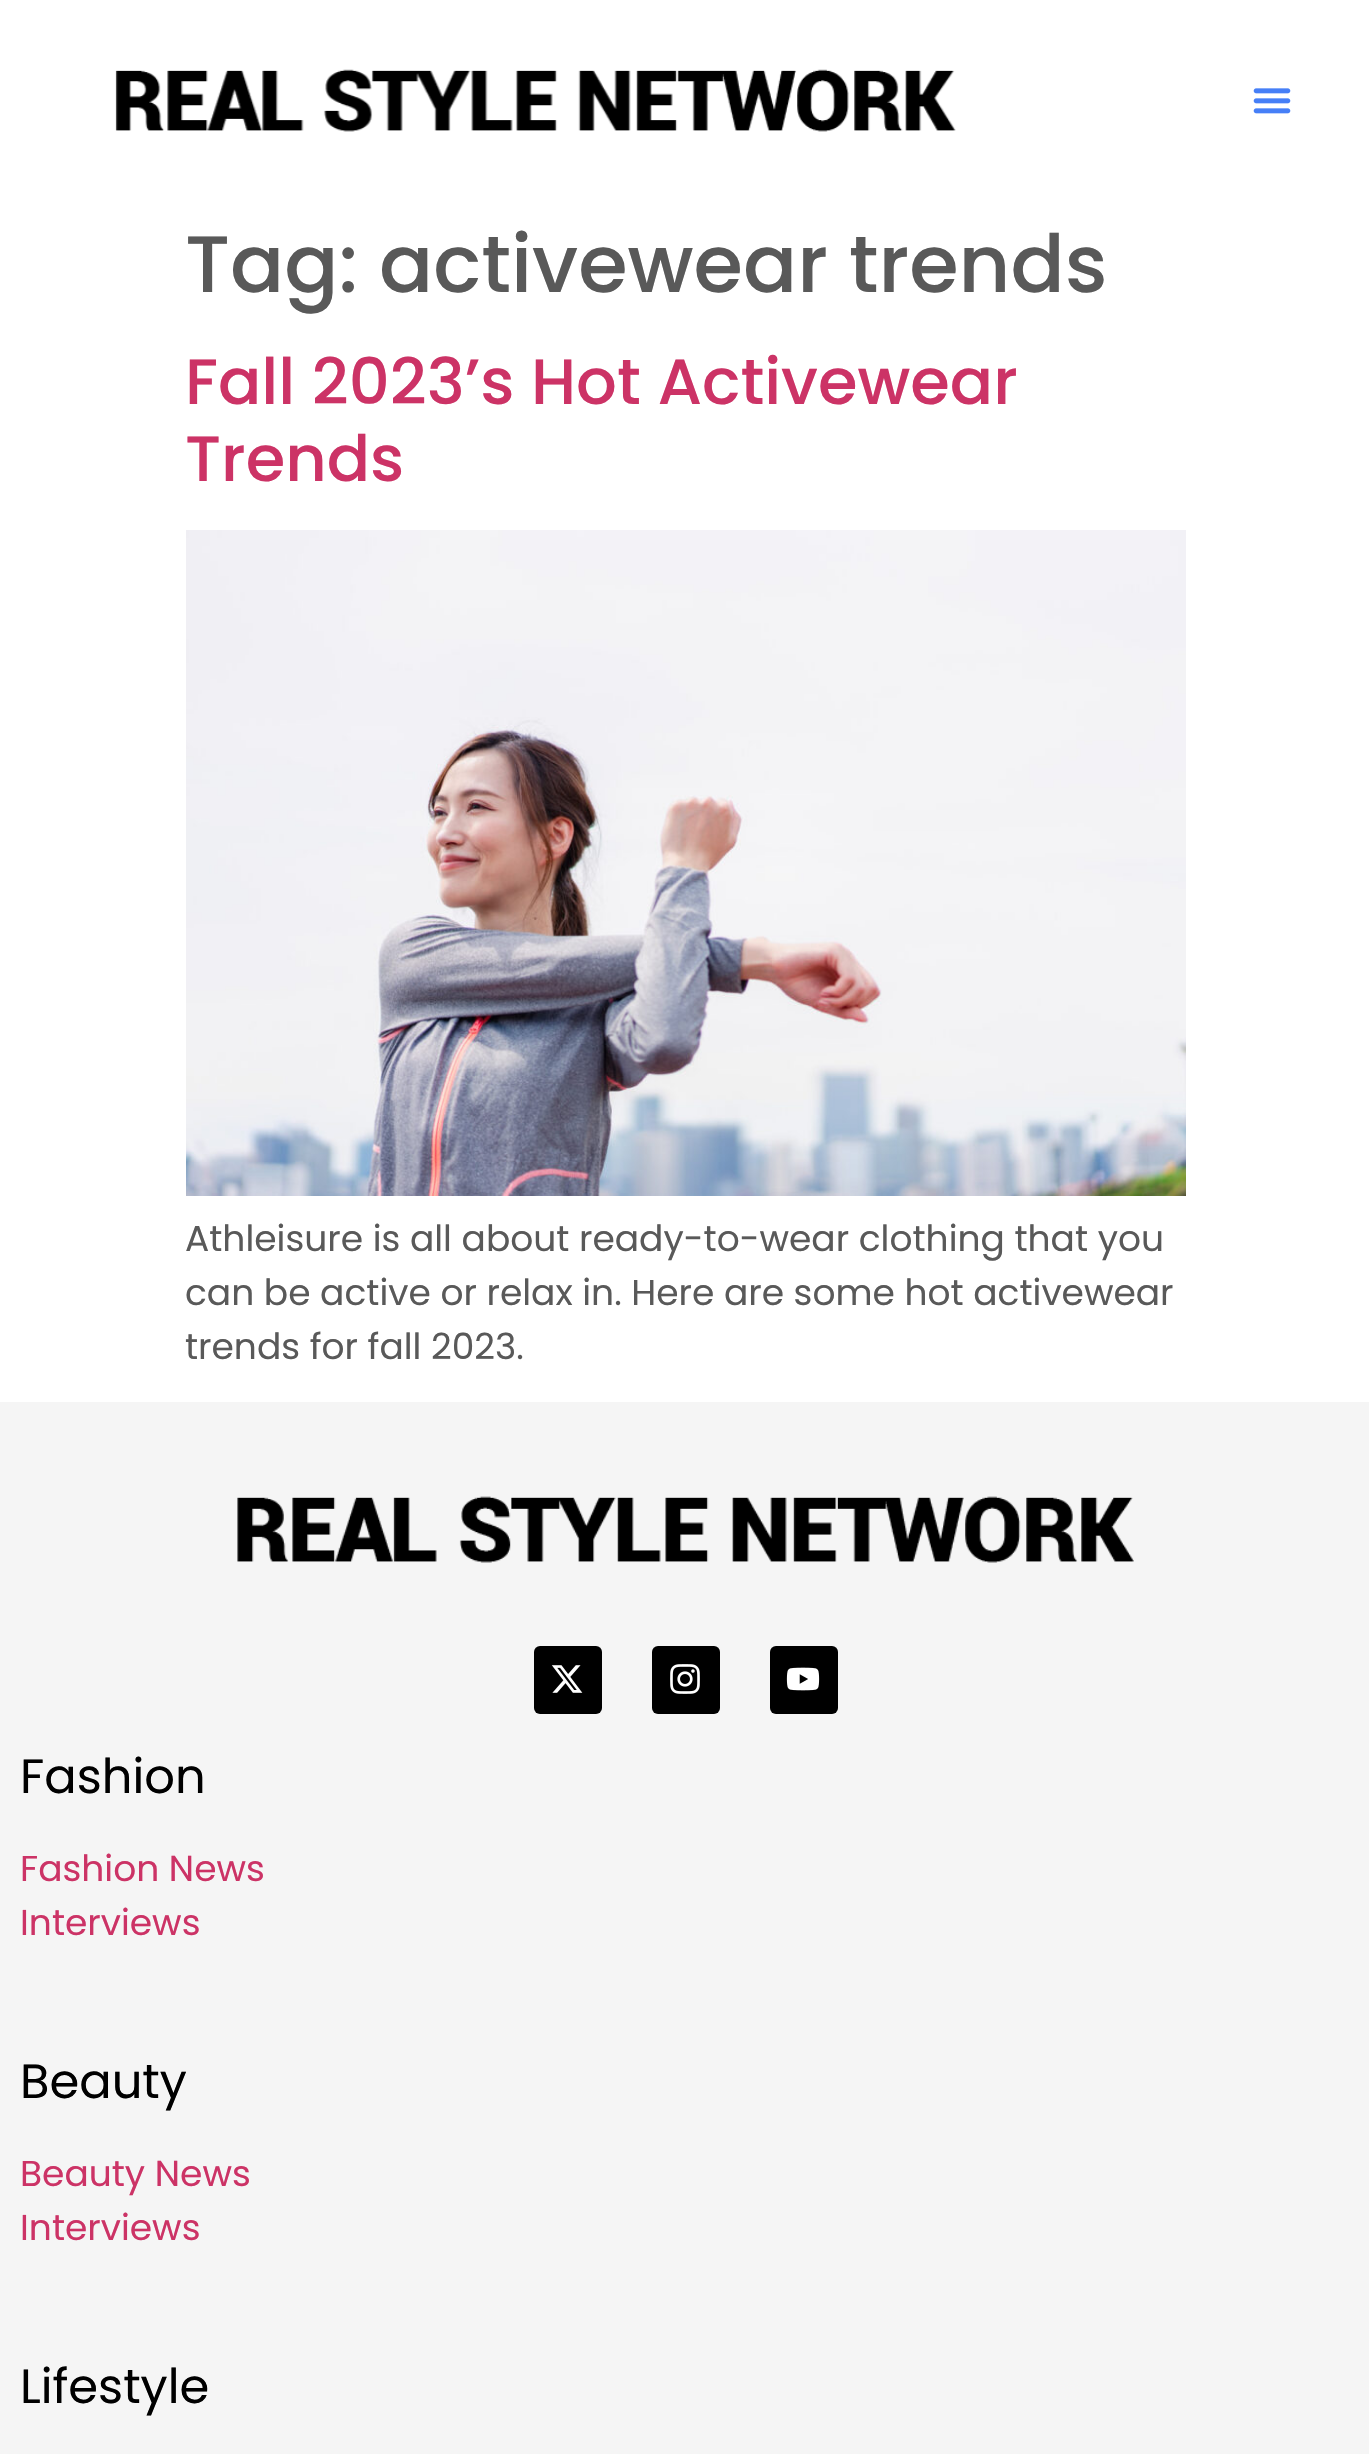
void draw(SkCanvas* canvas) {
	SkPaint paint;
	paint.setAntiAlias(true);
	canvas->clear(0xffffffff);
	canvas->drawImageRect(SkImages::DeferredFromEncodedData(SkData::MakeFromFileName("img1.png")), SkRect::MakeXYWH(115, 69, 841, 63), SkSamplingOptions());
	canvas->drawImageRect(SkImages::DeferredFromEncodedData(SkData::MakeFromFileName("img2.png")), SkRect::MakeXYWH(1253, 88, 38, 26), SkSamplingOptions());
	SkFont f1(fontMgr->matchFamilyStyle("Poppins", SkFontStyle(500, SkFontStyle::kNormal_Width, SkFontStyle::kUpright_Slant)), 80);
	f1.setSubpixel(true);
	paint.setColor(0xff595959);
	canvas->drawString("Tag: activewear trends", 185, 292, f1, paint);
	SkFont f2(fontMgr->matchFamilyStyle("Poppins", SkFontStyle(500, SkFontStyle::kNormal_Width, SkFontStyle::kUpright_Slant)), 64);
	f2.setSubpixel(true);
	paint.setColor(0xffcc3366);
	canvas->drawString("Fall 2023’s Hot Activewear", 185, 404, f2, paint);
	canvas->drawString("Trends", 185, 481, f2, paint);
	canvas->drawImageRect(SkImages::DeferredFromEncodedData(SkData::MakeFromFileName("img3.png")), SkRect::MakeXYWH(186, 530, 1000, 666), SkSamplingOptions());
	SkFont f3(fontMgr->matchFamilyStyle("Poppins", SkFontStyle::Normal()), 36);
	f3.setSubpixel(true);
	paint.setColor(0xff595959);
	canvas->drawString("Athleisure is all about ready-to-wear clothing that you", 185, 1251, f3, paint);
	canvas->drawString("can be active or relax in. Here are some hot activewear", 185, 1305, f3, paint);
	canvas->drawString("trends for fall 2023.", 185, 1359, f3, paint);
	paint.setColor(0xfff5f5f5);
	canvas->drawRect(SkRect::MakeXYWH(0, 1402, 1369, 1052), paint);
	canvas->drawImageRect(SkImages::DeferredFromEncodedData(SkData::MakeFromFileName("img4.png")), SkRect::MakeXYWH(237, 1496, 897, 67), SkSamplingOptions());
	paint.setColor(0xff000000);
	canvas->drawRoundRect(SkRect::MakeXYWH(534, 1646, 68, 68), 6, 6, paint);
	canvas->drawImageRect(SkImages::DeferredFromEncodedData(SkData::MakeFromFileName("img5.png")), SkRect::MakeXYWH(551, 1665, 32, 28), SkSamplingOptions());
	canvas->drawRoundRect(SkRect::MakeXYWH(652, 1646, 68, 68), 6, 6, paint);
	canvas->drawImageRect(SkImages::DeferredFromEncodedData(SkData::MakeFromFileName("img6.png")), SkRect::MakeXYWH(670, 1664, 30, 30), SkSamplingOptions());
	canvas->drawRoundRect(SkRect::MakeXYWH(770, 1646, 68, 68), 6, 6, paint);
	canvas->drawImageRect(SkImages::DeferredFromEncodedData(SkData::MakeFromFileName("img7.png")), SkRect::MakeXYWH(786, 1667, 34, 24), SkSamplingOptions());
	SkFont f4(fontMgr->matchFamilyStyle("Poppins", SkFontStyle::Normal()), 48);
	f4.setSubpixel(true);
	canvas->drawString("Fashion", 20, 1793, f4, paint);
	paint.setColor(0xffcc3366);
	canvas->drawString("Fashion News", 20, 1881, f3, paint);
	canvas->drawString("Interviews", 20, 1935, f3, paint);
	paint.setColor(0xff000000);
	canvas->drawString("Beauty", 20, 2098, f4, paint);
	paint.setColor(0xffcc3366);
	canvas->drawString("Beauty News", 20, 2186, f3, paint);
	canvas->drawString("Interviews", 20, 2240, f3, paint);
	paint.setColor(0xff000000);
	canvas->drawString("Lifestyle", 20, 2403, f4, paint);
}
